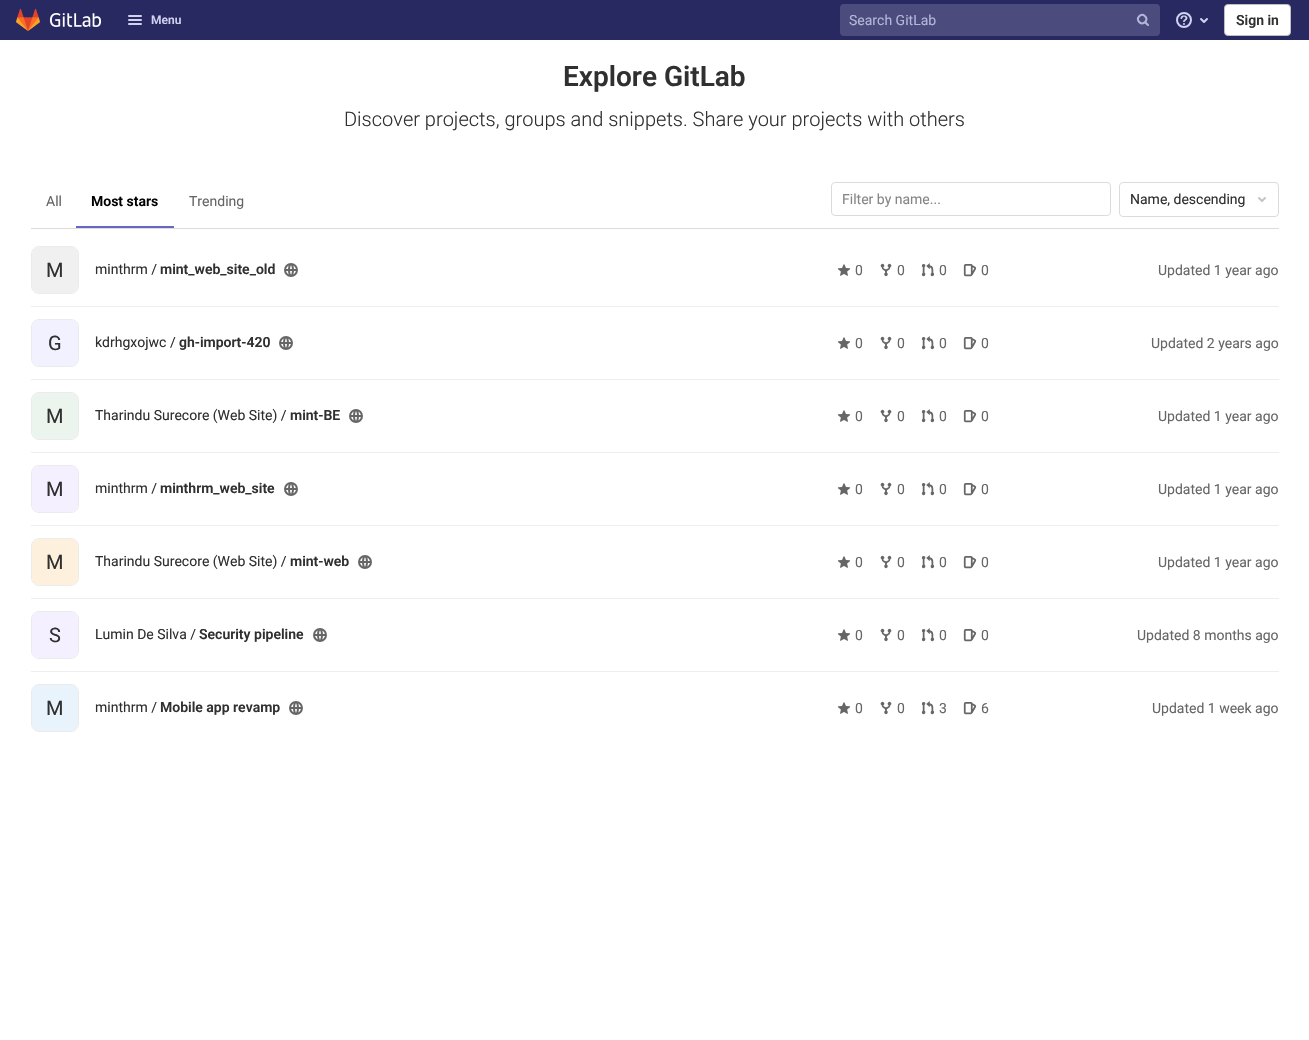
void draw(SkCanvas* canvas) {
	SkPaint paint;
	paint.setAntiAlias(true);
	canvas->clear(0xffffffff);
	paint.setColor(0xff292961);
	canvas->drawRect(SkRect::MakeXYWH(0, 0, 1309, 40), paint);
	canvas->drawImageRect(SkImages::DeferredFromEncodedData(SkData::MakeFromFileName("img1.png")), SkRect::MakeXYWH(16, 8, 24, 23), SkSamplingOptions());
	canvas->drawImageRect(SkImages::DeferredFromEncodedData(SkData::MakeFromFileName("img2.png")), SkRect::MakeXYWH(49, 13, 53, 14), SkSamplingOptions());
	canvas->drawImageRect(SkImages::DeferredFromEncodedData(SkData::MakeFromFileName("img3.png")), SkRect::MakeXYWH(128, 15, 14, 10), SkSamplingOptions());
	SkFont f1(fontMgr->matchFamilyStyle("Roboto", SkFontStyle(600, SkFontStyle::kNormal_Width, SkFontStyle::kUpright_Slant)), 12);
	f1.setSubpixel(true);
	paint.setColor(0xffd1d1f0);
	canvas->drawString("Menu", 151, 24, f1, paint);
	paint.setColor(0xff4b4b7e);
	canvas->drawRoundRect(SkRect::MakeXYWH(840, 4, 320, 32), 4, 4, paint);
	SkFont f2(fontMgr->matchFamilyStyle("Roboto", SkFontStyle::Normal()), 14);
	f2.setSubpixel(true);
	paint.setColor(0xffb6b6d9);
	canvas->drawString("Search GitLab", 849, 25, f2, paint);
	canvas->drawImageRect(SkImages::DeferredFromEncodedData(SkData::MakeFromFileName("img4.png")), SkRect::MakeXYWH(1136, 13, 13, 13), SkSamplingOptions());
	canvas->drawImageRect(SkImages::DeferredFromEncodedData(SkData::MakeFromFileName("img5.png")), SkRect::MakeXYWH(1176, 12, 16, 16), SkSamplingOptions());
	canvas->drawImageRect(SkImages::DeferredFromEncodedData(SkData::MakeFromFileName("img6.png")), SkRect::MakeXYWH(1200, 18, 8, 5), SkSamplingOptions());
	paint.setColor(0xffffffff);
	canvas->drawRoundRect(SkRect::MakeXYWH(1224.5, 4.5, 66, 31), 3.5, 3.5, paint);
	paint.setStroke(true);
	paint.setStrokeWidth(1);
	paint.setColor(0xffbfbfbf);
	canvas->drawRoundRect(SkRect::MakeXYWH(1224.5, 4.5, 66, 31), 3.5, 3.5, paint);
	SkFont f3(fontMgr->matchFamilyStyle("Roboto", SkFontStyle(600, SkFontStyle::kNormal_Width, SkFontStyle::kUpright_Slant)), 14);
	f3.setSubpixel(true);
	paint.setStroke(false);
	paint.setColor(0xff303030);
	canvas->drawString("Sign in", 1236, 25, f3, paint);
	SkFont f4(fontMgr->matchFamilyStyle("Roboto", SkFontStyle(600, SkFontStyle::kNormal_Width, SkFontStyle::kUpright_Slant)), 28);
	f4.setSubpixel(true);
	canvas->drawString("Explore GitLab", 563, 86, f4, paint);
	SkFont f5(fontMgr->matchFamilyStyle("Roboto", SkFontStyle(300, SkFontStyle::kNormal_Width, SkFontStyle::kUpright_Slant)), 20);
	f5.setSubpixel(true);
	canvas->drawString("Discover projects, groups and snippets. Share your projects with others", 344, 126, f5, paint);
	paint.setColor(0xffdbdbdb);
	canvas->drawRect(SkRect::MakeXYWH(31, 228, 1248, 1), paint);
	paint.setColor(0xff666666);
	canvas->drawString("All", 46, 206, f2, paint);
	paint.setColor(0xff6666c4);
	canvas->drawRect(SkRect::MakeXYWH(76, 226, 98, 2), paint);
	paint.setColor(0xff000000);
	canvas->drawString("Most stars", 91, 206, f3, paint);
	paint.setColor(0xff666666);
	canvas->drawString("Trending", 189, 206, f2, paint);
	paint.setStroke(true);
	paint.setColor(0xffdbdbdb);
	canvas->drawRoundRect(SkRect::MakeXYWH(831.5, 182.5, 279, 33), 3.5, 3.5, paint);
	paint.setStroke(false);
	paint.setColor(0xff868686);
	canvas->drawString("Filter by name...", 842, 204, f2, paint);
	paint.setStroke(true);
	paint.setColor(0xffdbdbdb);
	canvas->drawRoundRect(SkRect::MakeXYWH(1119.5, 182.5, 159, 34), 3.5, 3.5, paint);
	paint.setStroke(false);
	paint.setColor(0xff303030);
	canvas->drawString("Name, descending", 1130, 204, f2, paint);
	canvas->drawImageRect(SkImages::DeferredFromEncodedData(SkData::MakeFromFileName("img7.png")), SkRect::MakeXYWH(1258, 197, 8, 5), SkSamplingOptions());
	paint.setColor(0xffeeeeee);
	canvas->drawRect(SkRect::MakeXYWH(31, 306, 1248, 1), paint);
	paint.setStroke(true);
	paint.setColor(0xffebebeb);
	canvas->drawRoundRect(SkRect::MakeXYWH(31.5, 246.5, 47, 47), 7.5, 7.5, paint);
	paint.setStroke(false);
	paint.setColor(0xfff0f0f0);
	canvas->drawRoundRect(SkRect::MakeXYWH(32, 247, 46, 46), 7, 7, paint);
	SkFont f6(fontMgr->matchFamilyStyle("Roboto", SkFontStyle::Normal()), 20);
	f6.setSubpixel(true);
	paint.setColor(0xff303030);
	canvas->drawString("M", 46, 277, f6, paint);
	canvas->drawString("minthrm /", 95, 274, f2, paint);
	canvas->drawString("mint_web_site_old", 160, 274, f3, paint);
	canvas->drawImageRect(SkImages::DeferredFromEncodedData(SkData::MakeFromFileName("img8.png")), SkRect::MakeXYWH(284, 263, 14, 14), SkSamplingOptions());
	canvas->drawImageRect(SkImages::DeferredFromEncodedData(SkData::MakeFromFileName("img9.png")), SkRect::MakeXYWH(837, 264, 14, 12), SkSamplingOptions());
	paint.setColor(0xff666666);
	canvas->drawString("0", 855, 275, f2, paint);
	canvas->drawImageRect(SkImages::DeferredFromEncodedData(SkData::MakeFromFileName("img10.png")), SkRect::MakeXYWH(880, 263, 12, 14), SkSamplingOptions());
	canvas->drawString("0", 897, 275, f2, paint);
	canvas->drawImageRect(SkImages::DeferredFromEncodedData(SkData::MakeFromFileName("img11.png")), SkRect::MakeXYWH(921, 263, 14, 14), SkSamplingOptions());
	canvas->drawString("0", 939, 275, f2, paint);
	canvas->drawImageRect(SkImages::DeferredFromEncodedData(SkData::MakeFromFileName("img12.png")), SkRect::MakeXYWH(963, 264, 14, 13), SkSamplingOptions());
	canvas->drawString("0", 981, 275, f2, paint);
	canvas->drawString("Updated 1 year ago", 1158, 275, f2, paint);
	paint.setColor(0xffeeeeee);
	canvas->drawRect(SkRect::MakeXYWH(31, 379, 1248, 1), paint);
	paint.setStroke(true);
	paint.setColor(0xffebebeb);
	canvas->drawRoundRect(SkRect::MakeXYWH(31.5, 319.5, 47, 47), 7.5, 7.5, paint);
	paint.setStroke(false);
	paint.setColor(0xfff1f1ff);
	canvas->drawRoundRect(SkRect::MakeXYWH(32, 320, 46, 46), 7, 7, paint);
	paint.setColor(0xff303030);
	canvas->drawString("G", 48, 350, f6, paint);
	canvas->drawString("kdrhgxojwc /", 95, 347, f2, paint);
	canvas->drawString("gh-import-420", 179, 347, f3, paint);
	canvas->drawImageRect(SkImages::DeferredFromEncodedData(SkData::MakeFromFileName("img8.png")), SkRect::MakeXYWH(279, 336, 14, 14), SkSamplingOptions());
	canvas->drawImageRect(SkImages::DeferredFromEncodedData(SkData::MakeFromFileName("img9.png")), SkRect::MakeXYWH(837, 337, 14, 12), SkSamplingOptions());
	paint.setColor(0xff666666);
	canvas->drawString("0", 855, 348, f2, paint);
	canvas->drawImageRect(SkImages::DeferredFromEncodedData(SkData::MakeFromFileName("img10.png")), SkRect::MakeXYWH(880, 336, 12, 14), SkSamplingOptions());
	canvas->drawString("0", 897, 348, f2, paint);
	canvas->drawImageRect(SkImages::DeferredFromEncodedData(SkData::MakeFromFileName("img11.png")), SkRect::MakeXYWH(921, 336, 14, 14), SkSamplingOptions());
	canvas->drawString("0", 939, 348, f2, paint);
	canvas->drawImageRect(SkImages::DeferredFromEncodedData(SkData::MakeFromFileName("img12.png")), SkRect::MakeXYWH(963, 337, 14, 13), SkSamplingOptions());
	canvas->drawString("0", 981, 348, f2, paint);
	canvas->drawString("Updated 2 years ago", 1151, 348, f2, paint);
	paint.setColor(0xffeeeeee);
	canvas->drawRect(SkRect::MakeXYWH(31, 452, 1248, 1), paint);
	paint.setStroke(true);
	paint.setColor(0xffebebeb);
	canvas->drawRoundRect(SkRect::MakeXYWH(31.5, 392.5, 47, 47), 7.5, 7.5, paint);
	paint.setStroke(false);
	paint.setColor(0xffecf4ee);
	canvas->drawRoundRect(SkRect::MakeXYWH(32, 393, 46, 46), 7, 7, paint);
	paint.setColor(0xff303030);
	canvas->drawString("M", 46, 423, f6, paint);
	canvas->drawString("Tharindu Surecore (Web Site) /", 95, 420, f2, paint);
	canvas->drawString("mint-BE", 290, 420, f3, paint);
	canvas->drawImageRect(SkImages::DeferredFromEncodedData(SkData::MakeFromFileName("img8.png")), SkRect::MakeXYWH(349, 409, 14, 14), SkSamplingOptions());
	canvas->drawImageRect(SkImages::DeferredFromEncodedData(SkData::MakeFromFileName("img9.png")), SkRect::MakeXYWH(837, 410, 14, 12), SkSamplingOptions());
	paint.setColor(0xff666666);
	canvas->drawString("0", 855, 421, f2, paint);
	canvas->drawImageRect(SkImages::DeferredFromEncodedData(SkData::MakeFromFileName("img10.png")), SkRect::MakeXYWH(880, 409, 12, 14), SkSamplingOptions());
	canvas->drawString("0", 897, 421, f2, paint);
	canvas->drawImageRect(SkImages::DeferredFromEncodedData(SkData::MakeFromFileName("img11.png")), SkRect::MakeXYWH(921, 409, 14, 14), SkSamplingOptions());
	canvas->drawString("0", 939, 421, f2, paint);
	canvas->drawImageRect(SkImages::DeferredFromEncodedData(SkData::MakeFromFileName("img12.png")), SkRect::MakeXYWH(963, 410, 14, 13), SkSamplingOptions());
	canvas->drawString("0", 981, 421, f2, paint);
	canvas->drawString("Updated 1 year ago", 1158, 421, f2, paint);
	paint.setColor(0xffeeeeee);
	canvas->drawRect(SkRect::MakeXYWH(31, 525, 1248, 1), paint);
	paint.setStroke(true);
	paint.setColor(0xffebebeb);
	canvas->drawRoundRect(SkRect::MakeXYWH(31.5, 465.5, 47, 47), 7.5, 7.5, paint);
	paint.setStroke(false);
	paint.setColor(0xfff4f0ff);
	canvas->drawRoundRect(SkRect::MakeXYWH(32, 466, 46, 46), 7, 7, paint);
	paint.setColor(0xff303030);
	canvas->drawString("M", 46, 496, f6, paint);
	canvas->drawString("minthrm /", 95, 493, f2, paint);
	canvas->drawString("minthrm_web_site", 160, 493, f3, paint);
	canvas->drawImageRect(SkImages::DeferredFromEncodedData(SkData::MakeFromFileName("img8.png")), SkRect::MakeXYWH(284, 482, 14, 14), SkSamplingOptions());
	canvas->drawImageRect(SkImages::DeferredFromEncodedData(SkData::MakeFromFileName("img9.png")), SkRect::MakeXYWH(837, 483, 14, 12), SkSamplingOptions());
	paint.setColor(0xff666666);
	canvas->drawString("0", 855, 494, f2, paint);
	canvas->drawImageRect(SkImages::DeferredFromEncodedData(SkData::MakeFromFileName("img10.png")), SkRect::MakeXYWH(880, 482, 12, 14), SkSamplingOptions());
	canvas->drawString("0", 897, 494, f2, paint);
	canvas->drawImageRect(SkImages::DeferredFromEncodedData(SkData::MakeFromFileName("img11.png")), SkRect::MakeXYWH(921, 482, 14, 14), SkSamplingOptions());
	canvas->drawString("0", 939, 494, f2, paint);
	canvas->drawImageRect(SkImages::DeferredFromEncodedData(SkData::MakeFromFileName("img12.png")), SkRect::MakeXYWH(963, 483, 14, 13), SkSamplingOptions());
	canvas->drawString("0", 981, 494, f2, paint);
	canvas->drawString("Updated 1 year ago", 1158, 494, f2, paint);
	paint.setColor(0xffeeeeee);
	canvas->drawRect(SkRect::MakeXYWH(31, 598, 1248, 1), paint);
	paint.setStroke(true);
	paint.setColor(0xffebebeb);
	canvas->drawRoundRect(SkRect::MakeXYWH(31.5, 538.5, 47, 47), 7.5, 7.5, paint);
	paint.setStroke(false);
	paint.setColor(0xfffdf1dd);
	canvas->drawRoundRect(SkRect::MakeXYWH(32, 539, 46, 46), 7, 7, paint);
	paint.setColor(0xff303030);
	canvas->drawString("M", 46, 569, f6, paint);
	canvas->drawString("Tharindu Surecore (Web Site) /", 95, 566, f2, paint);
	canvas->drawString("mint-web", 290, 566, f3, paint);
	canvas->drawImageRect(SkImages::DeferredFromEncodedData(SkData::MakeFromFileName("img8.png")), SkRect::MakeXYWH(358, 555, 14, 14), SkSamplingOptions());
	canvas->drawImageRect(SkImages::DeferredFromEncodedData(SkData::MakeFromFileName("img9.png")), SkRect::MakeXYWH(837, 556, 14, 12), SkSamplingOptions());
	paint.setColor(0xff666666);
	canvas->drawString("0", 855, 567, f2, paint);
	canvas->drawImageRect(SkImages::DeferredFromEncodedData(SkData::MakeFromFileName("img10.png")), SkRect::MakeXYWH(880, 555, 12, 14), SkSamplingOptions());
	canvas->drawString("0", 897, 567, f2, paint);
	canvas->drawImageRect(SkImages::DeferredFromEncodedData(SkData::MakeFromFileName("img11.png")), SkRect::MakeXYWH(921, 555, 14, 14), SkSamplingOptions());
	canvas->drawString("0", 939, 567, f2, paint);
	canvas->drawImageRect(SkImages::DeferredFromEncodedData(SkData::MakeFromFileName("img12.png")), SkRect::MakeXYWH(963, 556, 14, 13), SkSamplingOptions());
	canvas->drawString("0", 981, 567, f2, paint);
	canvas->drawString("Updated 1 year ago", 1158, 567, f2, paint);
	paint.setColor(0xffeeeeee);
	canvas->drawRect(SkRect::MakeXYWH(31, 671, 1248, 1), paint);
	paint.setStroke(true);
	paint.setColor(0xffebebeb);
	canvas->drawRoundRect(SkRect::MakeXYWH(31.5, 611.5, 47, 47), 7.5, 7.5, paint);
	paint.setStroke(false);
	paint.setColor(0xfff4f0ff);
	canvas->drawRoundRect(SkRect::MakeXYWH(32, 612, 46, 46), 7, 7, paint);
	paint.setColor(0xff303030);
	canvas->drawString("S", 49, 642, f6, paint);
	canvas->drawString("Lumin De Silva /", 95, 639, f2, paint);
	canvas->drawString("Security pipeline", 199, 639, f3, paint);
	canvas->drawImageRect(SkImages::DeferredFromEncodedData(SkData::MakeFromFileName("img8.png")), SkRect::MakeXYWH(313, 628, 14, 14), SkSamplingOptions());
	canvas->drawImageRect(SkImages::DeferredFromEncodedData(SkData::MakeFromFileName("img9.png")), SkRect::MakeXYWH(837, 629, 14, 12), SkSamplingOptions());
	paint.setColor(0xff666666);
	canvas->drawString("0", 855, 640, f2, paint);
	canvas->drawImageRect(SkImages::DeferredFromEncodedData(SkData::MakeFromFileName("img10.png")), SkRect::MakeXYWH(880, 628, 12, 14), SkSamplingOptions());
	canvas->drawString("0", 897, 640, f2, paint);
	canvas->drawImageRect(SkImages::DeferredFromEncodedData(SkData::MakeFromFileName("img11.png")), SkRect::MakeXYWH(921, 628, 14, 14), SkSamplingOptions());
	canvas->drawString("0", 939, 640, f2, paint);
	canvas->drawImageRect(SkImages::DeferredFromEncodedData(SkData::MakeFromFileName("img12.png")), SkRect::MakeXYWH(963, 629, 14, 13), SkSamplingOptions());
	canvas->drawString("0", 981, 640, f2, paint);
	canvas->drawString("Updated 8 months ago", 1137, 640, f2, paint);
	paint.setStroke(true);
	paint.setColor(0xffebebeb);
	canvas->drawRoundRect(SkRect::MakeXYWH(31.5, 684.5, 47, 47), 7.5, 7.5, paint);
	paint.setStroke(false);
	paint.setColor(0xffe9f3fc);
	canvas->drawRoundRect(SkRect::MakeXYWH(32, 685, 46, 46), 7, 7, paint);
	paint.setColor(0xff303030);
	canvas->drawString("M", 46, 715, f6, paint);
	canvas->drawString("minthrm /", 95, 712, f2, paint);
	canvas->drawString("Mobile app revamp", 160, 712, f3, paint);
	canvas->drawImageRect(SkImages::DeferredFromEncodedData(SkData::MakeFromFileName("img8.png")), SkRect::MakeXYWH(289, 701, 14, 14), SkSamplingOptions());
	canvas->drawImageRect(SkImages::DeferredFromEncodedData(SkData::MakeFromFileName("img9.png")), SkRect::MakeXYWH(837, 702, 14, 12), SkSamplingOptions());
	paint.setColor(0xff666666);
	canvas->drawString("0", 855, 713, f2, paint);
	canvas->drawImageRect(SkImages::DeferredFromEncodedData(SkData::MakeFromFileName("img10.png")), SkRect::MakeXYWH(880, 701, 12, 14), SkSamplingOptions());
	canvas->drawString("0", 897, 713, f2, paint);
	canvas->drawImageRect(SkImages::DeferredFromEncodedData(SkData::MakeFromFileName("img11.png")), SkRect::MakeXYWH(921, 701, 14, 14), SkSamplingOptions());
	canvas->drawString("3", 939, 713, f2, paint);
	canvas->drawImageRect(SkImages::DeferredFromEncodedData(SkData::MakeFromFileName("img12.png")), SkRect::MakeXYWH(963, 702, 14, 13), SkSamplingOptions());
	canvas->drawString("6", 981, 713, f2, paint);
	canvas->drawString("Updated 1 week ago", 1152, 713, f2, paint);
}
